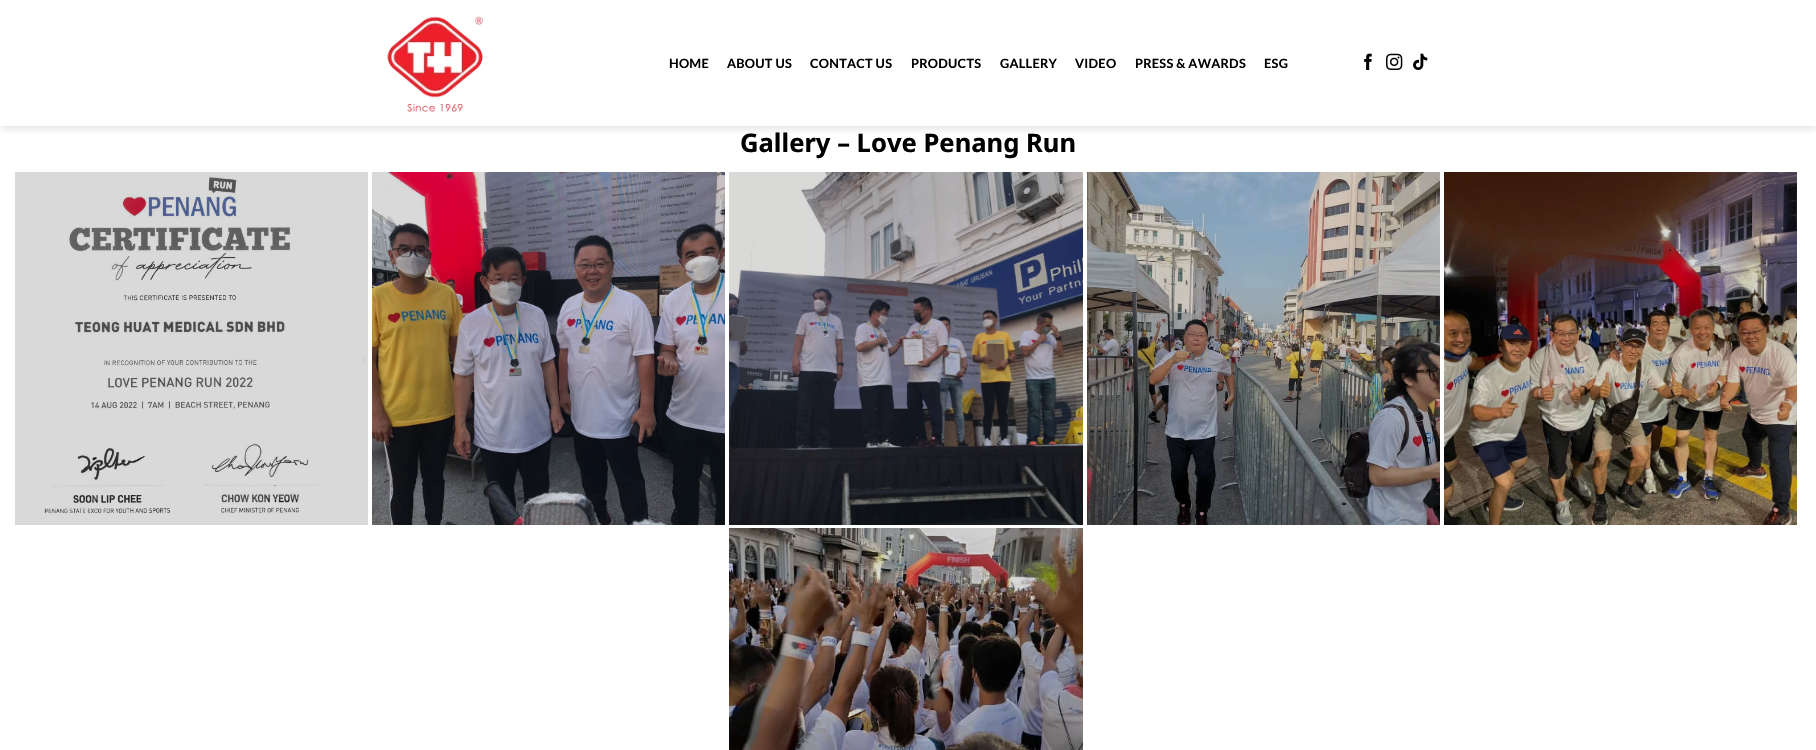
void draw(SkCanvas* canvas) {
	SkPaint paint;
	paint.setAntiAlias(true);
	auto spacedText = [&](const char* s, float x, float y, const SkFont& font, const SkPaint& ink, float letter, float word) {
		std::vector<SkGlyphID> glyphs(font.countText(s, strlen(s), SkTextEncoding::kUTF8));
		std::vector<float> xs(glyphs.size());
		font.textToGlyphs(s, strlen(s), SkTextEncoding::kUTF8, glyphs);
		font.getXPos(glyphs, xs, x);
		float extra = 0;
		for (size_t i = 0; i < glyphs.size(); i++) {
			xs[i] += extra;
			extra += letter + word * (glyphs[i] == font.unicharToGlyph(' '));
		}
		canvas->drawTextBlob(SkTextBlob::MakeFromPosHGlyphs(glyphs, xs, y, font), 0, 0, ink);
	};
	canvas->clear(0xffffffff);
	paint.setColor(0xffd9d9d9);
	canvas->drawRect(SkRect::MakeXYWH(15, 172, 353, 353), paint);
	canvas->save();
	canvas->clipRect(SkRect::MakeXYWH(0, 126, 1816, 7));
	paint.setColor(0x26000000);
	paint.setMaskFilter(SkMaskFilter::MakeBlur(kNormal_SkBlurStyle, 5));
	canvas->drawRect(SkRect::MakeXYWH(1, 1, 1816, 126), paint);
	paint.setMaskFilter(nullptr);
	canvas->restore();
	canvas->drawImageRect(SkImages::DeferredFromEncodedData(SkData::MakeFromFileName("img1.png")), SkRect::MakeXYWH(387, 16, 96, 96), SkSamplingOptions());
	SkFont f1(fontMgr->matchFamilyStyle("Lato", SkFontStyle::Bold()), 12.75);
	f1.setSubpixel(true);
	paint.setColor(0xff000000);
	spacedText("HOME", 669, 68, f1, paint, 0.25, 0);
	spacedText("ABOUT US", 727, 68, f1, paint, 0.25, 0);
	spacedText("CONTACT US", 810, 68, f1, paint, 0.25, 0);
	spacedText("PRODUCTS", 911, 68, f1, paint, 0.25, 0);
	spacedText("GALLERY", 1000, 68, f1, paint, 0.25, 0);
	spacedText("VIDEO", 1075, 68, f1, paint, 0.25, 0);
	spacedText("PRESS & AWARDS", 1135, 68, f1, paint, 0.25, 0);
	spacedText("ESG", 1264, 68, f1, paint, 0.25, 0);
	canvas->drawImageRect(SkImages::DeferredFromEncodedData(SkData::MakeFromFileName("img2.png")), SkRect::MakeXYWH(1364, 53, 8, 17), SkSamplingOptions());
	canvas->drawImageRect(SkImages::DeferredFromEncodedData(SkData::MakeFromFileName("img3.png")), SkRect::MakeXYWH(1386, 53, 17, 17), SkSamplingOptions());
	canvas->drawImageRect(SkImages::DeferredFromEncodedData(SkData::MakeFromFileName("img4.png")), SkRect::MakeXYWH(1413, 53, 15, 17), SkSamplingOptions());
	SkFont f2(fontMgr->matchFamilyStyle("Noto Sans", SkFontStyle::Bold()), 25.6);
	f2.setSubpixel(true);
	canvas->drawString("Gallery – Love Penang Run", 740, 152, f2, paint);
	canvas->drawImageRect(SkImages::DeferredFromEncodedData(SkData::MakeFromFileName("img5.png")), SkRect::MakeXYWH(44, 176, 321, 338), SkSamplingOptions());
	canvas->drawImageRect(SkImages::DeferredFromEncodedData(SkData::MakeFromFileName("img6.png")), SkRect::MakeXYWH(372, 172, 353, 353), SkSamplingOptions());
	canvas->drawImageRect(SkImages::DeferredFromEncodedData(SkData::MakeFromFileName("img7.png")), SkRect::MakeXYWH(729, 172, 354, 353), SkSamplingOptions());
	canvas->drawImageRect(SkImages::DeferredFromEncodedData(SkData::MakeFromFileName("img8.png")), SkRect::MakeXYWH(1087, 172, 353, 353), SkSamplingOptions());
	canvas->drawImageRect(SkImages::DeferredFromEncodedData(SkData::MakeFromFileName("img9.png")), SkRect::MakeXYWH(1444, 172, 353, 353), SkSamplingOptions());
	canvas->drawImageRect(SkImages::DeferredFromEncodedData(SkData::MakeFromFileName("img10.png")), SkRect::MakeXYWH(729, 528, 354, 222), SkSamplingOptions());
}
